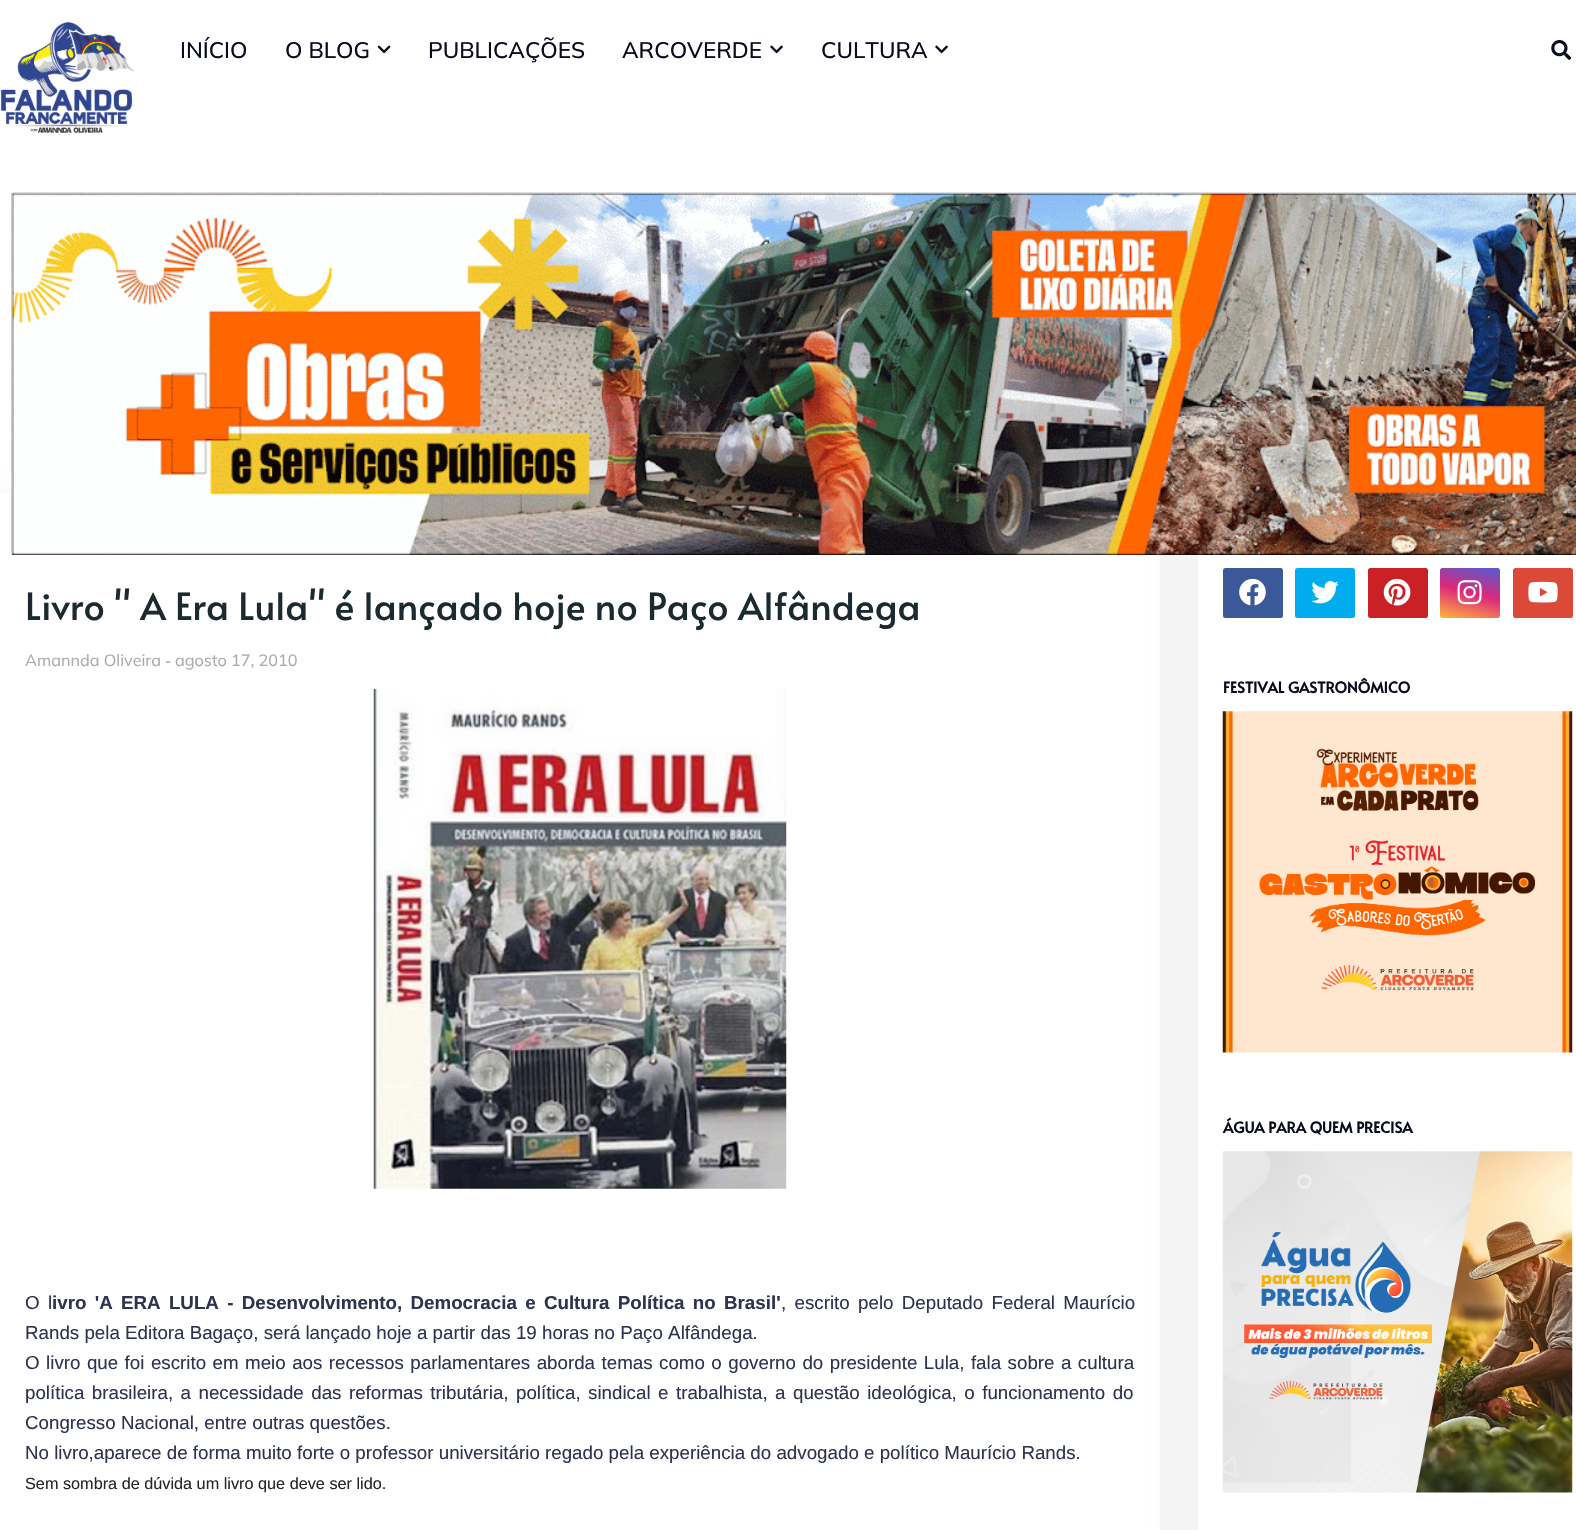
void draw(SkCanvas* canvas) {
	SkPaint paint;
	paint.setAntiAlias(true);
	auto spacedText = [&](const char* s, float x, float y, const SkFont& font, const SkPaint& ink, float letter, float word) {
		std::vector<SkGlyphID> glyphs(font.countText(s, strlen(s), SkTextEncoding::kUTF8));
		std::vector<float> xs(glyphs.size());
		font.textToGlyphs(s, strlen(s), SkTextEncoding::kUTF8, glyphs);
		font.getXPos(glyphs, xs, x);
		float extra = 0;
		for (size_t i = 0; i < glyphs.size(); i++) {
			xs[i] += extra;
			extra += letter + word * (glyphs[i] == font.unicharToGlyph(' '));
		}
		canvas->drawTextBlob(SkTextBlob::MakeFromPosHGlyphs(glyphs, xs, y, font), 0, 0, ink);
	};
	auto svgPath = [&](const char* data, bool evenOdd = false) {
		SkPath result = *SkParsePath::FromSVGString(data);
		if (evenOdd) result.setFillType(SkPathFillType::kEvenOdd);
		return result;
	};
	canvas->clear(0xffffffff);
	canvas->drawImageRect(SkImages::DeferredFromEncodedData(SkData::MakeFromFileName("img1.png")), SkRect::MakeXYWH(0, 22, 135, 111), SkSamplingOptions());
	SkFont f1(fontMgr->matchFamilyStyle("Mulish", SkFontStyle(500, SkFontStyle::kNormal_Width, SkFontStyle::kUpright_Slant)), 22.5);
	f1.setSubpixel(true);
	paint.setColor(0xff090c1e);
	canvas->drawString("INÍCIO", 180, 58, f1, paint);
	canvas->drawString("O BLOG", 285, 58, f1, paint);
	canvas->drawImageRect(SkImages::DeferredFromEncodedData(SkData::MakeFromFileName("img2.png")), SkRect::MakeXYWH(377, 45, 14, 9), SkSamplingOptions());
	canvas->drawString("PUBLICAÇÕES", 428, 58, f1, paint);
	canvas->drawString("ARCOVERDE", 622, 58, f1, paint);
	canvas->drawImageRect(SkImages::DeferredFromEncodedData(SkData::MakeFromFileName("img3.png")), SkRect::MakeXYWH(770, 45, 13, 9), SkSamplingOptions());
	canvas->drawString("CULTURA", 821, 58, f1, paint);
	canvas->drawImageRect(SkImages::DeferredFromEncodedData(SkData::MakeFromFileName("img3.png")), SkRect::MakeXYWH(935, 45, 13, 9), SkSamplingOptions());
	canvas->drawImageRect(SkImages::DeferredFromEncodedData(SkData::MakeFromFileName("img4.png")), SkRect::MakeXYWH(1551, 40, 21, 20), SkSamplingOptions());
	canvas->save();
	canvas->clipPath(svgPath("M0 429H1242V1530H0ZM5 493H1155C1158 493 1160 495 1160 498V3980C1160 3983 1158 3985 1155 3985H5C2 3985 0 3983 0 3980V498C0 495 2 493 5 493Z", true), true);
	paint.setColor(0x26848485);
	paint.setMaskFilter(SkMaskFilter::MakeBlur(kNormal_SkBlurStyle, 25));
	canvas->drawRoundRect(SkRect::MakeXYWH(-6, 505, 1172, 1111), 11, 11, paint);
	paint.setMaskFilter(nullptr);
	canvas->restore();
	paint.setMaskFilter(SkMaskFilter::MakeBlur(kNormal_SkBlurStyle, 25));
	canvas->drawRoundRect(SkRect::MakeXYWH(1191, 505, 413, 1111), 11, 11, paint);
	paint.setMaskFilter(nullptr);
	canvas->drawImageRect(SkImages::DeferredFromEncodedData(SkData::MakeFromFileName("img5.png")), SkRect::MakeXYWH(11, 192, 1565, 363), SkSamplingOptions());
	SkFont f2(fontMgr->matchFamilyStyle("Alata", SkFontStyle::Normal()), 37.5);
	f2.setSubpixel(true);
	paint.setColor(0xff1a2a30);
	canvas->drawString("Livro \" A Era Lula\" é lançado hoje no Paço Alfândega", 25, 620, f2, paint);
	SkFont f3(fontMgr->matchFamilyStyle("Mulish", SkFontStyle::Normal()), 16.25);
	f3.setSubpixel(true);
	paint.setColor(0xffaaaaaa);
	canvas->drawString("Amannda Oliveira", 25, 666, f3, paint);
	SkFont f4(fontMgr->matchFamilyStyle("Mulish", SkFontStyle::Bold()), 14);
	f4.setSubpixel(true);
	canvas->drawString("-", 165, 666, f4, paint);
	canvas->drawString("agosto 17, 2010", 175, 666, f3, paint);
	canvas->drawImageRect(SkImages::DeferredFromEncodedData(SkData::MakeFromFileName("img6.png")), SkRect::MakeXYWH(373, 688, 414, 501), SkSamplingOptions());
	SkFont f5(fontMgr->matchFamilyStyle("Liberation Sans", SkFontStyle::Normal()), 18.75);
	f5.setSubpixel(true);
	paint.setColor(0xff2d3350);
	spacedText("O l", 25, 1309, f5, paint, 0, 3.1);
	SkFont f6(fontMgr->matchFamilyStyle("Liberation Sans", SkFontStyle::Bold()), 18.75);
	f6.setSubpixel(true);
	spacedText("ivro 'A ERA LULA - Desenvolvimento, Democracia e Cultura Política no Brasil'", 52, 1309, f6, paint, 0, 3.1);
	spacedText(", escrito pelo Deputado Federal Maurício", 781, 1309, f5, paint, 0, 3.1);
	canvas->drawString("Rands pela Editora Bagaço, será lançado hoje a partir das 19 horas no Paço Alfândega.", 25, 1339, f5, paint);
	spacedText("O livro que foi escrito em meio aos recessos parlamentares aborda temas como o governo do presidente Lula, fala sobre a cultura", 25, 1369, f5, paint, 0, 1.25);
	spacedText("política brasileira, a necessidade das reformas tributária, política, sindical e trabalhista, a questão ideológica, o funcionamento do", 25, 1399, f5, paint, 0, 2.25);
	canvas->drawString("Congresso Nacional, entre outras questões.", 25, 1429, f5, paint);
	canvas->drawString("No livro,aparece de forma muito forte o professor universitário regado pela experiência do advogado e político Maurício Rands.", 25, 1459, f5, paint);
	SkFont f7(fontMgr->matchFamilyStyle("Liberation Sans", SkFontStyle::Normal()), 16.25);
	f7.setSubpixel(true);
	paint.setColor(0xff262626);
	canvas->drawString("Sem sombra de dúvida um livro que deve ser lido.", 25, 1489, f7, paint);
	paint.setColor(0xffffffff);
	canvas->drawRect(SkRect::MakeXYWH(1198, 555, 378, 975), paint);
	paint.setColor(0xff3b5999);
	canvas->drawRoundRect(SkRect::MakeXYWH(1223, 568, 60, 50), 2.5, 2.5, paint);
	canvas->drawImageRect(SkImages::DeferredFromEncodedData(SkData::MakeFromFileName("img7.png")), SkRect::MakeXYWH(1239, 578, 27, 28), SkSamplingOptions());
	paint.setColor(0xff00acee);
	canvas->drawRoundRect(SkRect::MakeXYWH(1295, 568, 60, 50), 2.5, 2.5, paint);
	canvas->drawImageRect(SkImages::DeferredFromEncodedData(SkData::MakeFromFileName("img8.png")), SkRect::MakeXYWH(1311, 581, 28, 23), SkSamplingOptions());
	paint.setColor(0xffca2127);
	canvas->drawRoundRect(SkRect::MakeXYWH(1368, 568, 60, 50), 2.5, 2.5, paint);
	canvas->drawImageRect(SkImages::DeferredFromEncodedData(SkData::MakeFromFileName("img9.png")), SkRect::MakeXYWH(1383, 578, 28, 28), SkSamplingOptions());
	{
		const SkColor colors[] = {0xffffb13d, 0xffdd277b, 0xff4d5ed4};
		const float stops[] = {0, 0.5, 1};
		const SkPoint ends[] = {{1462, 623}, {1478, 562}};
		paint.setShader(SkGradientShader::MakeLinear(ends, colors, stops, 3, SkTileMode::kClamp));
		paint.setAlpha(255);
	}
	canvas->drawRoundRect(SkRect::MakeXYWH(1440, 568, 60, 50), 2.5, 2.5, paint);
	canvas->drawImageRect(SkImages::DeferredFromEncodedData(SkData::MakeFromFileName("img10.png")), SkRect::MakeXYWH(1457, 580, 25, 25), SkSamplingOptions());
	paint.setShader(nullptr);
	paint.setColor(0xffdb4a39);
	canvas->drawRoundRect(SkRect::MakeXYWH(1513, 568, 60, 50), 2.5, 2.5, paint);
	canvas->drawImageRect(SkImages::DeferredFromEncodedData(SkData::MakeFromFileName("img11.png")), SkRect::MakeXYWH(1528, 581, 30, 22), SkSamplingOptions());
	SkFont f8(fontMgr->matchFamilyStyle("Alata", SkFontStyle::Bold()), 15);
	f8.setSubpixel(true);
	paint.setColor(0xff090c1e);
	canvas->drawString("FESTIVAL GASTRONÔMICO", 1223, 693, f8, paint);
	canvas->drawImageRect(SkImages::DeferredFromEncodedData(SkData::MakeFromFileName("img12.png")), SkRect::MakeXYWH(1222, 711, 351, 342), SkSamplingOptions());
	canvas->drawString("ÁGUA PARA QUEM PRECISA", 1223, 1133, f8, paint);
	canvas->drawImageRect(SkImages::DeferredFromEncodedData(SkData::MakeFromFileName("img13.png")), SkRect::MakeXYWH(1222, 1151, 351, 342), SkSamplingOptions());
}
